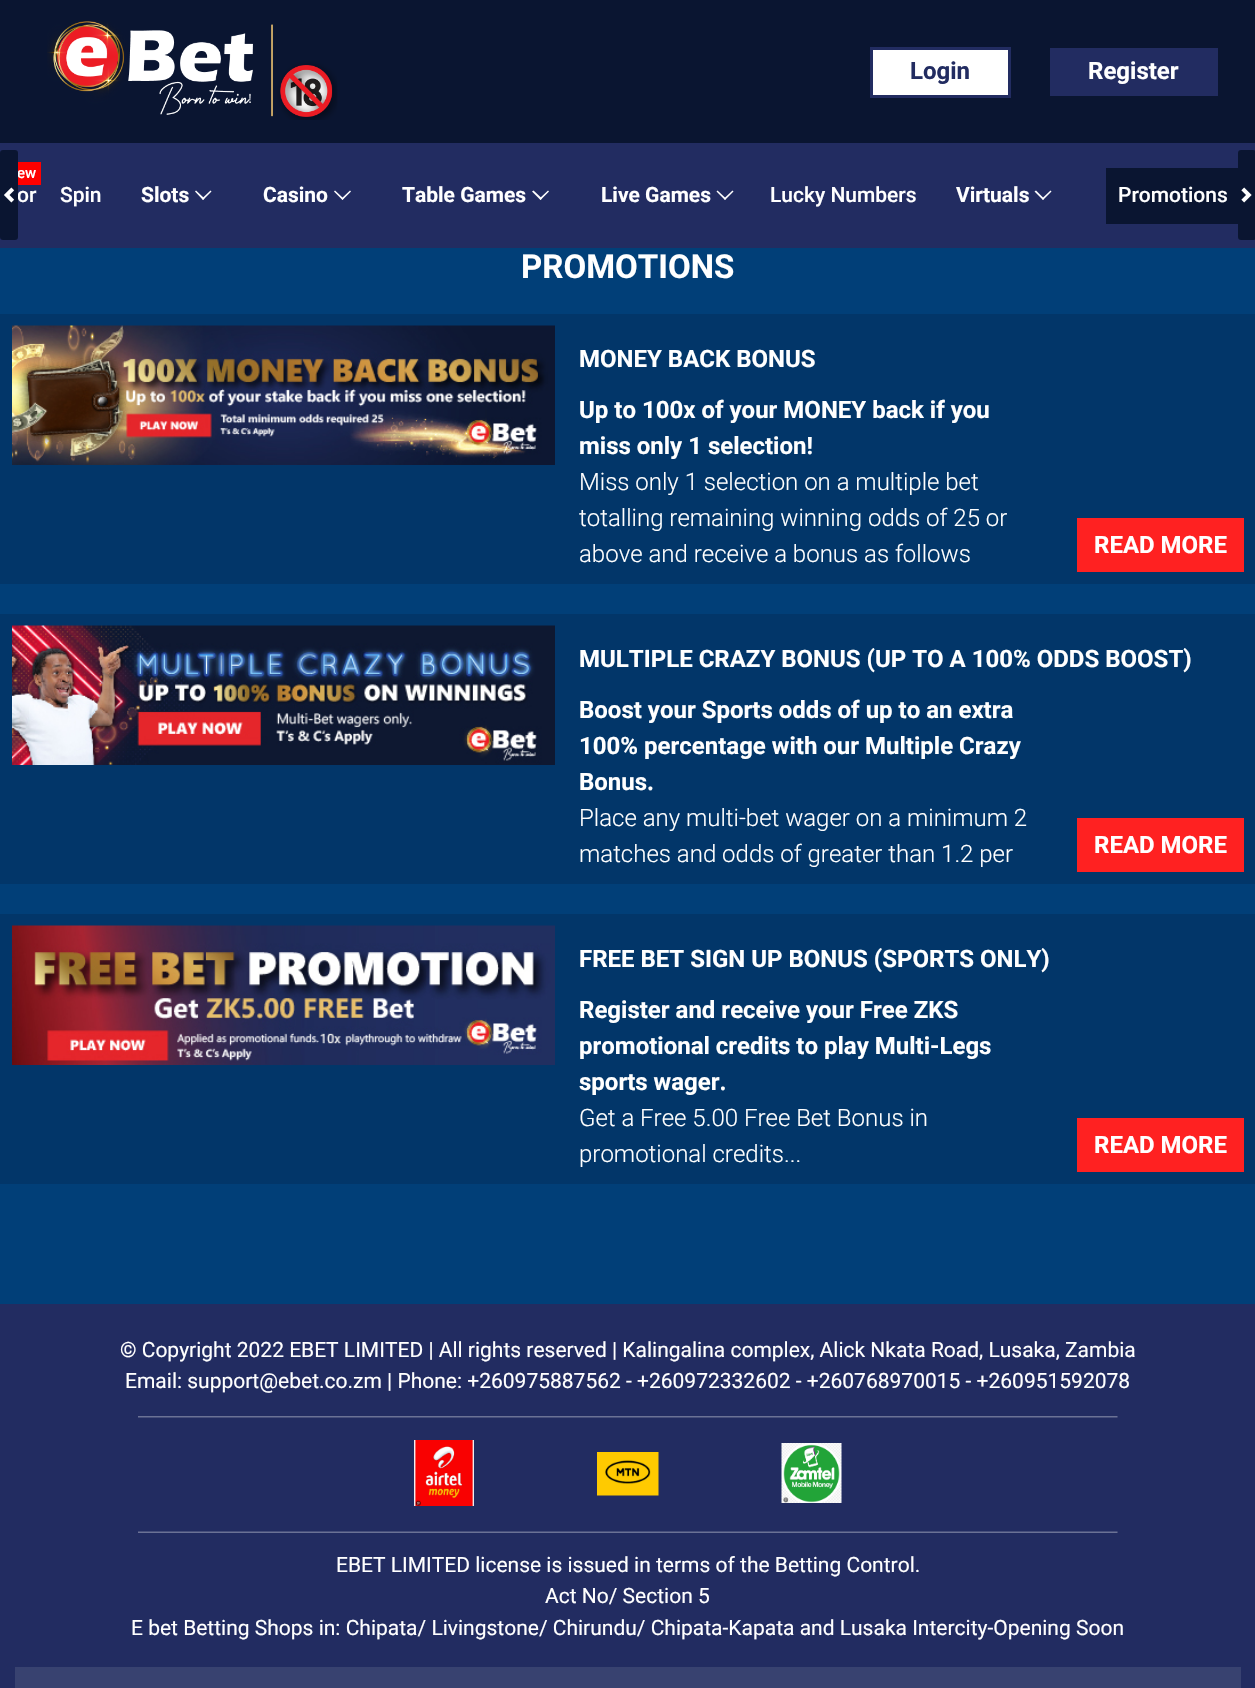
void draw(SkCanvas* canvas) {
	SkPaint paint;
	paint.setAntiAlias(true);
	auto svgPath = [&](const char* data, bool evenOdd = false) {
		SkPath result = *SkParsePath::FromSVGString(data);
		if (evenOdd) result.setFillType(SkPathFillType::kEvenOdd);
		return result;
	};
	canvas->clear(0xff222c61);
	paint.setColor(0xff0a1531);
	canvas->drawRect(SkRect::MakeXYWH(0, 0, 1255, 143), paint);
	canvas->drawImageRect(SkImages::DeferredFromEncodedData(SkData::MakeFromFileName("img1.png")), SkRect::MakeXYWH(47, 21, 291, 99), SkSamplingOptions());
	paint.setColor(0xffffffff);
	canvas->drawRect(SkRect::MakeXYWH(871.5, 48.5, 138, 48), paint);
	paint.setStroke(true);
	paint.setStrokeWidth(3);
	paint.setColor(0xff222c61);
	canvas->drawRect(SkRect::MakeXYWH(871.5, 48.5, 138, 48), paint);
	SkFont f1(fontMgr->matchFamilyStyle("Roboto", SkFontStyle::Bold()), 24);
	f1.setSubpixel(true);
	paint.setStroke(false);
	canvas->drawString("Login", 910, 79, f1, paint);
	canvas->drawRect(SkRect::MakeXYWH(1050, 48, 168, 48), paint);
	paint.setColor(0xffffffff);
	canvas->drawString("Register", 1088, 79, f1, paint);
	paint.setColor(0xff0a1531);
	canvas->drawRoundRect(SkRect::MakeXYWH(0, 150, 18, 90), 3, 3, paint);
	canvas->drawImageRect(SkImages::DeferredFromEncodedData(SkData::MakeFromFileName("img2.png")), SkRect::MakeXYWH(4, 187, 11, 16), SkSamplingOptions());
	paint.setColor(0xffff0000);
	canvas->drawRect(SkRect::MakeXYWH(18, 162, 23, 23), paint);
	canvas->save();
	canvas->clipRect(SkRect::MakeXYWH(18, 153, 1220, 86));
	SkFont f2(fontMgr->matchFamilyStyle("Roboto", SkFontStyle(500, SkFontStyle::kNormal_Width, SkFontStyle::kUpright_Slant)), 15);
	f2.setSubpixel(true);
	paint.setColor(0xffffffff);
	canvas->drawString("ew", 17, 178, f2, paint);
	SkFont f3(fontMgr->matchFamilyStyle("Roboto", SkFontStyle(500, SkFontStyle::kNormal_Width, SkFontStyle::kUpright_Slant)), 21);
	f3.setSubpixel(true);
	canvas->drawString("or", 17, 202, f3, paint);
	canvas->restore();
	canvas->drawString("Spin", 60, 202, f3, paint);
	SkFont f4(fontMgr->matchFamilyStyle("Roboto", SkFontStyle::Bold()), 21);
	f4.setSubpixel(true);
	canvas->drawString("Slots", 141, 202, f4, paint);
	canvas->drawPath(svgPath("M211.5 191.5L203 200L202 198.5L210.5 190.5Z"), paint);
	canvas->drawPath(svgPath("M204.5 198.5L203 200L195 191.5L196 190.5Z"), paint);
	canvas->drawString("Casino", 263, 202, f4, paint);
	canvas->drawPath(svgPath("M351 191.5L342.5 200L341.5 198.5L350 190.5Z"), paint);
	canvas->drawPath(svgPath("M343.5 198.5L342.5 200L334 191.5L335 190.5Z"), paint);
	canvas->drawString("Table Games", 402, 202, f4, paint);
	canvas->drawPath(svgPath("M549 191.5L540.5 200L539.5 198.5L548 190.5Z"), paint);
	canvas->drawPath(svgPath("M542 198.5L540.5 200L532 191.5L533.5 190.5Z"), paint);
	canvas->drawString("Live Games", 601, 202, f4, paint);
	canvas->drawPath(svgPath("M733.5 191.5L725 200L724 198.5L732.5 190.5Z"), paint);
	canvas->drawPath(svgPath("M726 198.5L725 200L716.5 191.5L717.5 190.5Z"), paint);
	canvas->drawString("Lucky Numbers", 770, 202, f3, paint);
	canvas->drawString("Virtuals", 956, 202, f4, paint);
	canvas->drawPath(svgPath("M1051.5 191.5L1043 200L1042 198.5L1050.5 190.5Z"), paint);
	canvas->drawPath(svgPath("M1044 198.5L1043 200L1034.5 191.5L1036 190.5Z"), paint);
	paint.setColor(0xff0a1531);
	canvas->drawRect(SkRect::MakeXYWH(1106, 168, 132, 56), paint);
	paint.setColor(0xffffffff);
	canvas->drawString("Promotions", 1118, 202, f3, paint);
	paint.setColor(0xff0a1531);
	canvas->drawRoundRect(SkRect::MakeXYWH(1238, 150, 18, 90), 3, 3, paint);
	canvas->drawImageRect(SkImages::DeferredFromEncodedData(SkData::MakeFromFileName("img3.png")), SkRect::MakeXYWH(1241, 187, 11, 16), SkSamplingOptions());
	paint.setColor(0xff013f78);
	canvas->drawRect(SkRect::MakeXYWH(0, 248, 1255, 1056), paint);
	SkFont f5(fontMgr->matchFamilyStyle("Roboto", SkFontStyle::Bold()), 33);
	f5.setSubpixel(true);
	paint.setColor(0xffffffff);
	canvas->drawString("PROMOTIONS", 521, 278, f5, paint);
	paint.setColor(0xff023669);
	canvas->drawRect(SkRect::MakeXYWH(0, 314, 1255, 270), paint);
	canvas->drawImageRect(SkImages::DeferredFromEncodedData(SkData::MakeFromFileName("img4.png")), SkRect::MakeXYWH(12, 325, 543, 140), SkSamplingOptions());
	paint.setColor(0xffffffff);
	canvas->drawString("MONEY BACK BONUS", 579, 367, f1, paint);
	canvas->drawString("Up to 100x of your MONEY back if you", 579, 418, f1, paint);
	canvas->drawString("miss only 1 selection!", 579, 454, f1, paint);
	SkFont f6(fontMgr->matchFamilyStyle("Roboto", SkFontStyle(300, SkFontStyle::kNormal_Width, SkFontStyle::kUpright_Slant)), 24);
	f6.setSubpixel(true);
	canvas->drawString("Miss only 1 selection on a multiple bet", 579, 490, f6, paint);
	canvas->drawString("totalling remaining winning odds of 25 or", 579, 526, f6, paint);
	canvas->drawString("above and receive a bonus as follows", 579, 562, f6, paint);
	paint.setColor(0xffff2121);
	canvas->drawRect(SkRect::MakeXYWH(1077, 518, 167, 54), paint);
	paint.setColor(0xffffffff);
	canvas->drawString("READ MORE", 1094, 553, f1, paint);
	paint.setColor(0xff023669);
	canvas->drawRect(SkRect::MakeXYWH(0, 614, 1255, 270), paint);
	canvas->drawImageRect(SkImages::DeferredFromEncodedData(SkData::MakeFromFileName("img5.png")), SkRect::MakeXYWH(12, 625, 543, 140), SkSamplingOptions());
	paint.setColor(0xffffffff);
	canvas->drawString("MULTIPLE CRAZY BONUS (UP TO A 100% ODDS BOOST)", 579, 667, f1, paint);
	canvas->drawString("Boost your Sports odds of up to an extra", 579, 718, f1, paint);
	canvas->drawString("100% percentage with our Multiple Crazy", 579, 754, f1, paint);
	canvas->drawString("Bonus.", 579, 790, f1, paint);
	canvas->drawString("Place any multi-bet wager on a minimum 2", 579, 826, f6, paint);
	canvas->drawString("matches and odds of greater than 1.2 per", 579, 862, f6, paint);
	paint.setColor(0xffff2121);
	canvas->drawRect(SkRect::MakeXYWH(1077, 818, 167, 54), paint);
	paint.setColor(0xffffffff);
	canvas->drawString("READ MORE", 1094, 853, f1, paint);
	paint.setColor(0xff023669);
	canvas->drawRect(SkRect::MakeXYWH(0, 914, 1255, 270), paint);
	canvas->drawImageRect(SkImages::DeferredFromEncodedData(SkData::MakeFromFileName("img6.png")), SkRect::MakeXYWH(12, 925, 543, 140), SkSamplingOptions());
	paint.setColor(0xffffffff);
	canvas->drawString("FREE BET SIGN UP BONUS (SPORTS ONLY)", 579, 967, f1, paint);
	canvas->drawString("Register and receive your Free ZKS", 579, 1018, f1, paint);
	canvas->drawString("promotional credits to play Multi-Legs", 579, 1054, f1, paint);
	canvas->drawString("sports wager.", 579, 1090, f1, paint);
	canvas->drawString("Get a Free 5.00 Free Bet Bonus in", 579, 1126, f6, paint);
	canvas->drawString("promotional credits...", 579, 1162, f6, paint);
	paint.setColor(0xffff2121);
	canvas->drawRect(SkRect::MakeXYWH(1077, 1118, 167, 54), paint);
	paint.setColor(0xffffffff);
	canvas->drawString("READ MORE", 1094, 1153, f1, paint);
	SkFont f7(fontMgr->matchFamilyStyle("Roboto", SkFontStyle::Normal()), 21);
	f7.setSubpixel(true);
	canvas->drawString("© Copyright 2022 EBET LIMITED | All rights reserved | Kalingalina complex, Alick Nkata Road, Lusaka, Zambia", 120, 1357, f7, paint);
	canvas->drawString("Email: support@ebet.co.zm | Phone: +260975887562 - +260972332602 - +260768970015 - +260951592078", 125, 1388, f7, paint);
	canvas->drawImageRect(SkImages::DeferredFromEncodedData(SkData::MakeFromFileName("img7.png")), SkRect::MakeXYWH(138, 1416, 980, 2), SkSamplingOptions());
	canvas->drawImageRect(SkImages::DeferredFromEncodedData(SkData::MakeFromFileName("img8.png")), SkRect::MakeXYWH(414, 1440, 60, 66), SkSamplingOptions());
	canvas->drawImageRect(SkImages::DeferredFromEncodedData(SkData::MakeFromFileName("img9.png")), SkRect::MakeXYWH(597, 1452, 62, 44), SkSamplingOptions());
	canvas->drawImageRect(SkImages::DeferredFromEncodedData(SkData::MakeFromFileName("img10.png")), SkRect::MakeXYWH(781, 1443, 61, 60), SkSamplingOptions());
	canvas->drawImageRect(SkImages::DeferredFromEncodedData(SkData::MakeFromFileName("img11.png")), SkRect::MakeXYWH(138, 1531, 980, 2), SkSamplingOptions());
	canvas->drawString("EBET LIMITED license is issued in terms of the Betting Control.", 336, 1572, f7, paint);
	canvas->drawString("Act No/ Section 5", 545, 1603, f7, paint);
	canvas->drawString("E bet Betting Shops in: Chipata/ Livingstone/ Chirundu/ Chipata-Kapata and Lusaka Intercity-Opening Soon", 131, 1635, f7, paint);
	paint.setColor(0xff384270);
	canvas->drawRect(SkRect::MakeXYWH(15, 1667, 1226, 21), paint);
}
